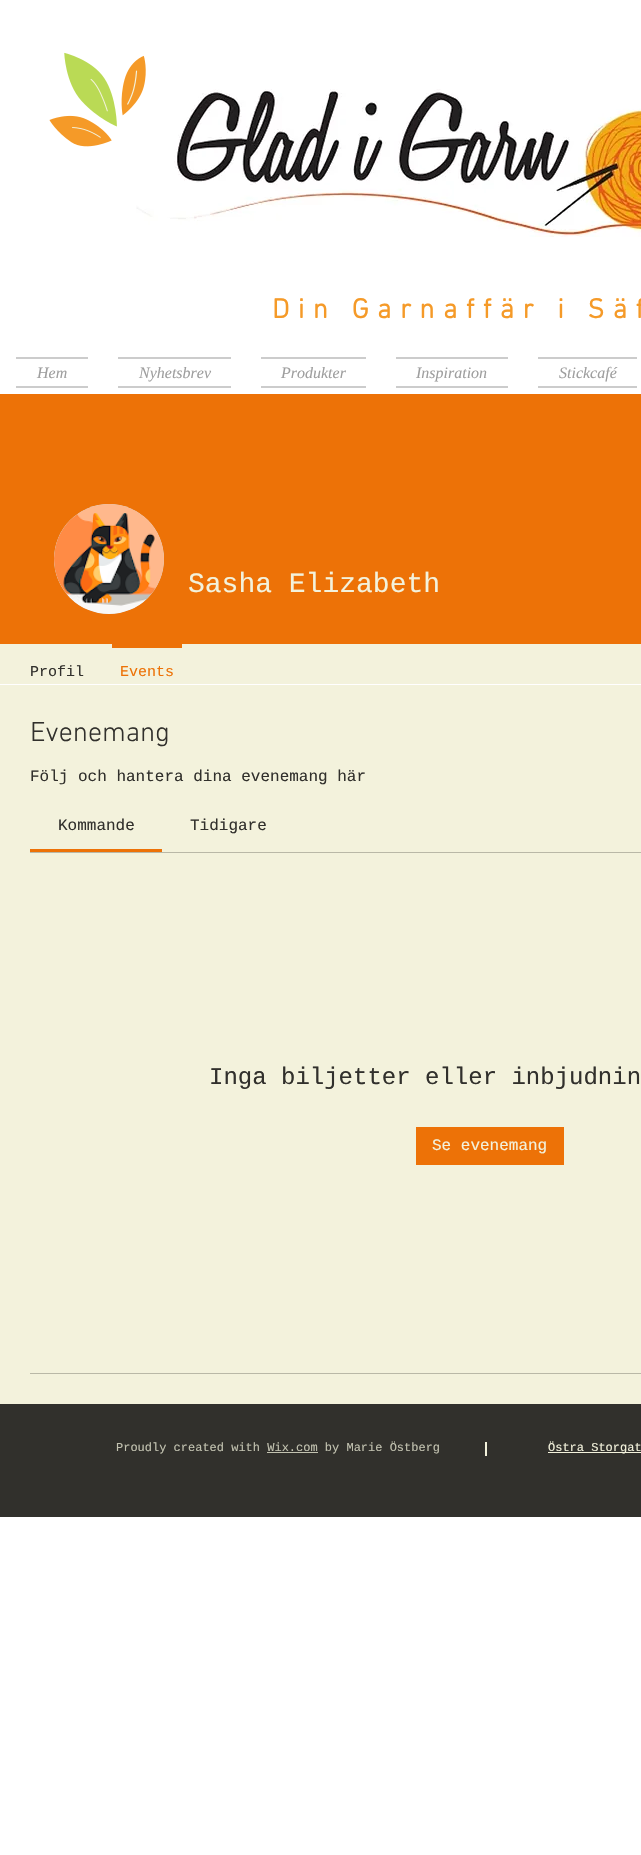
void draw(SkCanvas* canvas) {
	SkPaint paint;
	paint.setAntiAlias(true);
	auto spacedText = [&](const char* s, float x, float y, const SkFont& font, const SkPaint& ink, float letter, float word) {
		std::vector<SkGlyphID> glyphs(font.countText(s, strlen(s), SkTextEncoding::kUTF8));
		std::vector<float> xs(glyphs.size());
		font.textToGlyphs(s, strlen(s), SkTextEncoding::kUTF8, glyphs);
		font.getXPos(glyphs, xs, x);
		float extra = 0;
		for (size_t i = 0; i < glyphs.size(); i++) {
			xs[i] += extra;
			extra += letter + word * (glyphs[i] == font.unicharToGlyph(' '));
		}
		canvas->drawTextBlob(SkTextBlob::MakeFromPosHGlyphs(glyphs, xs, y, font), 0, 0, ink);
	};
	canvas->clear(0xffffffff);
	canvas->drawImageRect(SkImages::DeferredFromEncodedData(SkData::MakeFromFileName("img2.png")), SkRect::MakeXYWH(136, 89, 505, 148), SkSamplingOptions());
	canvas->drawImageRect(SkImages::DeferredFromEncodedData(SkData::MakeFromFileName("img1.png")), SkRect::MakeXYWH(49, 52, 97, 95), SkSamplingOptions());
	SkFont f1(fontMgr->matchFamilyStyle("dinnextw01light", SkFontStyle::Bold()), 28);
	f1.setSubpixel(true);
	paint.setColor(0xfff59a28);
	spacedText("Din Garnaffär i Säf", 272, 318, f1, paint, 8.4, 0);
	paint.setColor(0xffcccccc);
	canvas->drawRect(SkRect::MakeXYWH(16, 357, 72, 2), paint);
	canvas->drawRect(SkRect::MakeXYWH(16, 386, 72, 2), paint);
	SkFont f2(fontMgr->matchFamilyStyle("Liberation Serif", SkFontStyle::Italic()), 16);
	f2.setSubpixel(true);
	paint.setColor(0xff9e9e9e);
	canvas->drawString("Hem", 37, 378, f2, paint);
	paint.setColor(0xffcccccc);
	canvas->drawRect(SkRect::MakeXYWH(118, 357, 113, 2), paint);
	canvas->drawRect(SkRect::MakeXYWH(118, 386, 113, 2), paint);
	paint.setColor(0xff9e9e9e);
	canvas->drawString("Nyhetsbrev", 139, 378, f2, paint);
	paint.setColor(0xffcccccc);
	canvas->drawRect(SkRect::MakeXYWH(261, 357, 105, 2), paint);
	canvas->drawRect(SkRect::MakeXYWH(261, 386, 105, 2), paint);
	paint.setColor(0xff9e9e9e);
	canvas->drawString("Produkter", 281, 378, f2, paint);
	paint.setColor(0xffcccccc);
	canvas->drawRect(SkRect::MakeXYWH(396, 357, 112, 2), paint);
	canvas->drawRect(SkRect::MakeXYWH(396, 386, 112, 2), paint);
	paint.setColor(0xff9e9e9e);
	canvas->drawString("Inspiration", 416, 378, f2, paint);
	paint.setColor(0xffcccccc);
	canvas->drawRect(SkRect::MakeXYWH(538, 357, 99, 2), paint);
	canvas->drawRect(SkRect::MakeXYWH(538, 386, 99, 2), paint);
	paint.setColor(0xff9e9e9e);
	canvas->drawString("Stickcafé", 559, 378, f2, paint);
	paint.setColor(0xffed7207);
	canvas->drawRect(SkRect::MakeXYWH(0, 394, 641, 250), paint);
	paint.setColor(0xffd8d8d8);
	canvas->drawCircle(109, 559, 55, paint);
	canvas->drawImageRect(SkImages::DeferredFromEncodedData(SkData::MakeFromFileName("img3.png")), SkRect::MakeXYWH(54, 504, 110, 110), SkSamplingOptions());
	SkFont f3(fontMgr->matchFamilyStyle("Liberation Mono", SkFontStyle::Normal()), 28);
	f3.setSubpixel(true);
	paint.setColor(0xfff3f2dc);
	canvas->drawString("Sasha Elizabeth", 188, 592, f3, paint);
	canvas->drawRect(SkRect::MakeXYWH(0, 644, 641, 40), paint);
	SkFont f4(fontMgr->matchFamilyStyle("Liberation Mono", SkFontStyle::Normal()), 15);
	f4.setSubpixel(true);
	paint.setColor(0xff31302c);
	canvas->drawString("Profil", 30, 676, f4, paint);
	paint.setColor(0xffed7207);
	canvas->drawRect(SkRect::MakeXYWH(112, 644, 70, 4), paint);
	canvas->drawString("Events", 120, 676, f4, paint);
	paint.setColor(0xfff3f2dc);
	canvas->drawRect(SkRect::MakeXYWH(0, 685, 641, 719), paint);
	SkFont f5(fontMgr->matchFamilyStyle("dinnextw01light", SkFontStyle(300, SkFontStyle::kNormal_Width, SkFontStyle::kUpright_Slant)), 28);
	f5.setSubpixel(true);
	paint.setColor(0xff31302c);
	canvas->drawString("Evenemang", 30, 741, f5, paint);
	SkFont f6(fontMgr->matchFamilyStyle("Liberation Mono", SkFontStyle::Normal()), 16);
	f6.setSubpixel(true);
	canvas->drawString("Följ och hantera dina evenemang här", 30, 781, f6, paint);
	paint.setColor(0xffed7207);
	canvas->drawRect(SkRect::MakeXYWH(30, 849, 132, 3), paint);
	paint.setColor(0xff31302c);
	canvas->drawString("Kommande", 58, 830, f6, paint);
	canvas->drawString("Tidigare", 190, 830, f6, paint);
	paint.setColor(0xffb9b8a7);
	canvas->drawRect(SkRect::MakeXYWH(30, 852, 611, 1), paint);
	SkFont f7(fontMgr->matchFamilyStyle("Liberation Mono", SkFontStyle::Normal()), 24);
	f7.setSubpixel(true);
	paint.setColor(0xff31302c);
	canvas->drawString("Inga biljetter eller inbjudnin", 209, 1084, f7, paint);
	paint.setColor(0xffed7207);
	canvas->drawRect(SkRect::MakeXYWH(416, 1127, 148, 38), paint);
	paint.setColor(0xfff3f2dc);
	canvas->drawString("Se evenemang", 432, 1150, f6, paint);
	paint.setColor(0xffb9b8a7);
	canvas->drawRect(SkRect::MakeXYWH(30, 1373, 611, 1), paint);
	paint.setColor(0xff31302c);
	canvas->drawRect(SkRect::MakeXYWH(0, 1404, 641, 113), paint);
	SkFont f8(fontMgr->matchFamilyStyle("Liberation Mono", SkFontStyle::Normal()), 12);
	f8.setSubpixel(true);
	paint.setColor(0xffc2c2b0);
	canvas->drawString("Proudly created with Wix.com by Marie Östberg", 116, 1451, f8, paint);
	canvas->drawRect(SkRect::MakeXYWH(267, 1452, 51, 1), paint);
	paint.setColor(0xfff3f2dc);
	canvas->drawRect(SkRect::MakeXYWH(485, 1442, 2, 14), paint);
	canvas->drawRect(SkRect::MakeXYWH(548, 1452, 93, 1), paint);
	canvas->drawString("Östra Storgat", 548, 1451, f8, paint);
}
